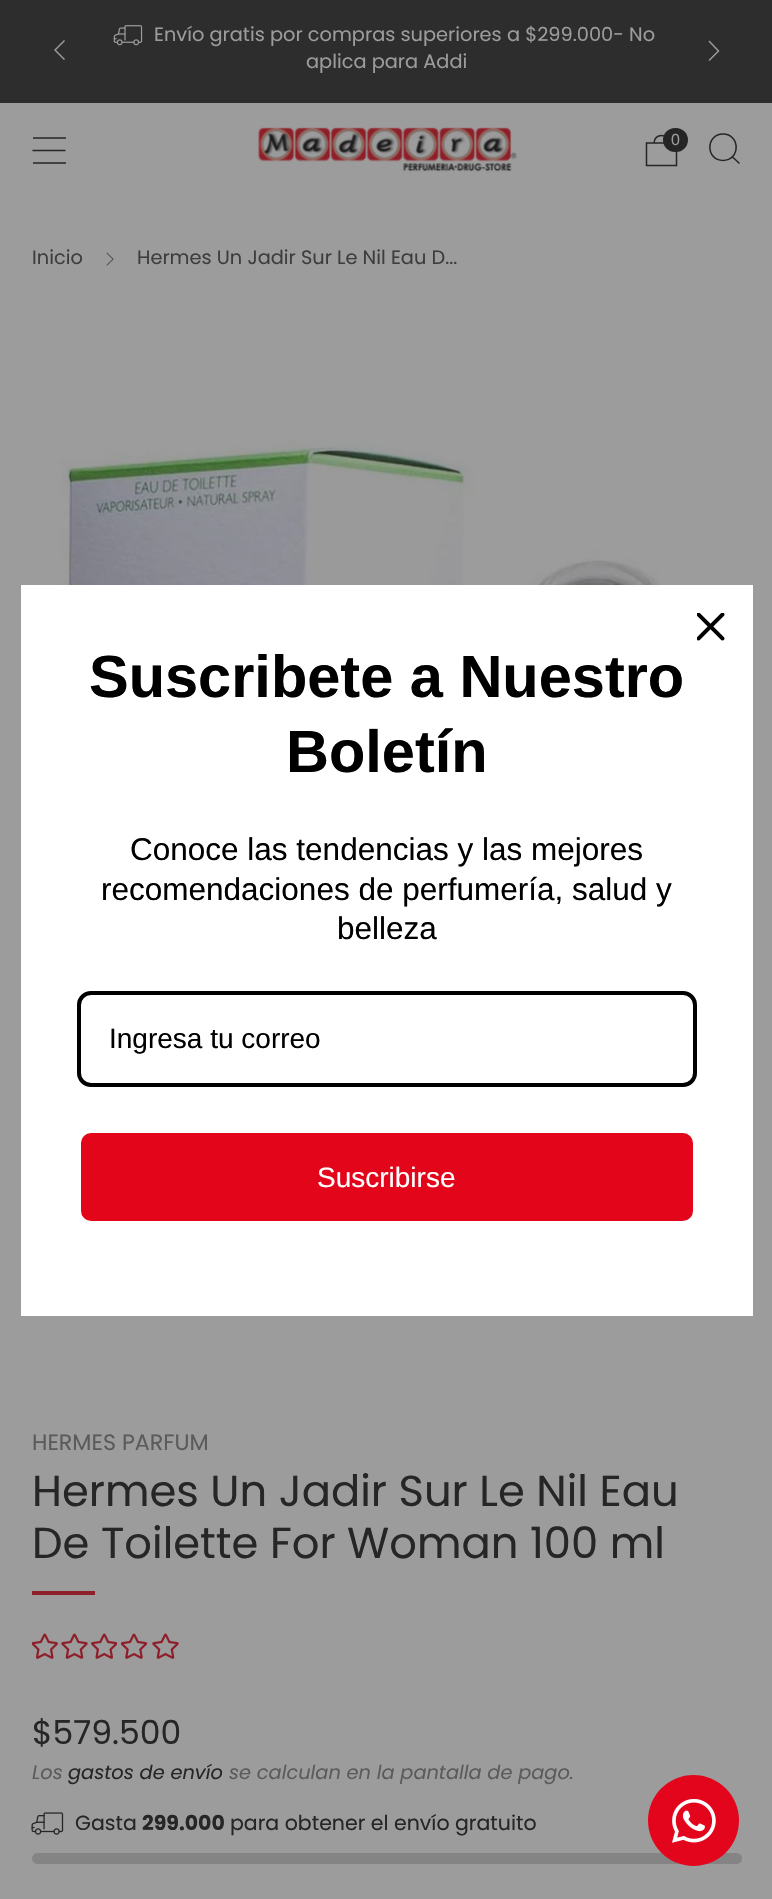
void draw(SkCanvas* canvas) {
	SkPaint paint;
	paint.setAntiAlias(true);
	auto svgPath = [&](const char* data, bool evenOdd = false) {
		SkPath result = *SkParsePath::FromSVGString(data);
		if (evenOdd) result.setFillType(SkPathFillType::kEvenOdd);
		return result;
	};
	canvas->clear(0xff9c9c9c);
	paint.setColor(0xff2d2d2d);
	canvas->drawRect(SkRect::MakeXYWH(0, 0, 772, 103), paint);
	paint.setColor(0xff9c9c9c);
	canvas->drawPath(svgPath("M65 59L64 60L54 50L64 40L65 41L56 50Z"), paint);
	canvas->drawImageRect(SkImages::DeferredFromEncodedData(SkData::MakeFromFileName("img1.png")), SkRect::MakeXYWH(113, 25, 30, 21), SkSamplingOptions());
	SkFont f1(fontMgr->matchFamilyStyle("Poppins", SkFontStyle::Normal()), 19.35);
	f1.setSubpixel(true);
	canvas->drawString("Envío gratis por compras superiores a $299.000- No", 154, 41, f1, paint);
	canvas->drawString("aplica para Addi", 306, 68, f1, paint);
	canvas->drawPath(svgPath("M708.5 60L709.5 61L719.5 51L709.5 40.5L708.5 41.5L717.5 51Z"), paint);
	paint.setColor(0xff434343);
	canvas->drawRect(SkRect::MakeXYWH(33, 137, 33, 2), paint);
	paint.setStroke(true);
	paint.setStrokeWidth(1.5);
	paint.setColor(0xff252525);
	canvas->drawPath(svgPath("M32.5 150.5H65.5"), paint);
	paint.setStroke(false);
	paint.setColor(0xff434343);
	canvas->drawRect(SkRect::MakeXYWH(33, 162, 33, 2), paint);
	canvas->drawImageRect(SkImages::DeferredFromEncodedData(SkData::MakeFromFileName("img2.png")), SkRect::MakeXYWH(257, 127, 260, 45), SkSamplingOptions());
	paint.setStroke(true);
	paint.setColor(0xff252525);
	canvas->drawPath(svgPath("M646.5 143H676.5V165.5H646.5ZM669 143C669 133 654 133 654 143"), paint);
	paint.setStroke(false);
	canvas->drawRoundRect(SkRect::MakeXYWH(663, 128, 25, 24), 12, 12, paint);
	SkFont f2(fontMgr->matchFamilyStyle("Liberation Sans", SkFontStyle::Normal()), 16);
	f2.setSubpixel(true);
	paint.setColor(0xff9c9c9c);
	canvas->drawString("0", 671, 145, f2, paint);
	paint.setStroke(true);
	paint.setColor(0xff252525);
	canvas->drawPath(svgPath("M723 160.5C740.5 160.5 740.5 134 723 134C705.5 134 705.5 160.5 723 160.5ZM732.5 157L739.5 163.5"), paint);
	paint.setStroke(false);
	paint.setColor(0xff3d3d3d);
	canvas->drawString("Inicio", 32, 264, f1, paint);
	canvas->drawImageRect(SkImages::DeferredFromEncodedData(SkData::MakeFromFileName("img3.png")), SkRect::MakeXYWH(106, 252, 8, 14), SkSamplingOptions());
	canvas->drawString("Hermes Un Jadir Sur Le Nil Eau D...", 137, 264, f1, paint);
	canvas->drawImageRect(SkImages::DeferredFromEncodedData(SkData::MakeFromFileName("img4.png")), SkRect::MakeXYWH(59, 439, 656, 146), SkSamplingOptions());
	SkFont f3(fontMgr->matchFamilyStyle("Poppins", SkFontStyle::Normal()), 22.25);
	f3.setSubpixel(true);
	paint.setColor(0xff5b5b5b);
	canvas->drawString("HERMES PARFUM", 32, 1450, f3, paint);
	SkFont f4(fontMgr->matchFamilyStyle("Poppins", SkFontStyle::Normal()), 43.25);
	f4.setSubpixel(true);
	paint.setColor(0xff262626);
	canvas->drawString("Hermes Un Jadir Sur Le Nil Eau", 32, 1506, f4, paint);
	canvas->drawString("De Toilette For Woman 100 ml", 32, 1558, f4, paint);
	paint.setColor(0xff8e1f2a);
	canvas->drawRect(SkRect::MakeXYWH(32, 1591, 63, 4), paint);
	canvas->drawImageRect(SkImages::DeferredFromEncodedData(SkData::MakeFromFileName("img5.png")), SkRect::MakeXYWH(32, 1633, 26, 26), SkSamplingOptions());
	canvas->drawImageRect(SkImages::DeferredFromEncodedData(SkData::MakeFromFileName("img6.png")), SkRect::MakeXYWH(61, 1633, 27, 26), SkSamplingOptions());
	canvas->drawImageRect(SkImages::DeferredFromEncodedData(SkData::MakeFromFileName("img7.png")), SkRect::MakeXYWH(91, 1633, 26, 26), SkSamplingOptions());
	canvas->drawImageRect(SkImages::DeferredFromEncodedData(SkData::MakeFromFileName("img8.png")), SkRect::MakeXYWH(121, 1633, 27, 26), SkSamplingOptions());
	canvas->drawImageRect(SkImages::DeferredFromEncodedData(SkData::MakeFromFileName("img6.png")), SkRect::MakeXYWH(152, 1633, 27, 26), SkSamplingOptions());
	SkFont f5(fontMgr->matchFamilyStyle("Poppins", SkFontStyle::Normal()), 33);
	f5.setSubpixel(true);
	paint.setColor(0xff262626);
	canvas->drawString("$579.500", 32, 1744, f5, paint);
	SkFont f6(fontMgr->matchFamilyStyle("Poppins", SkFontStyle::Italic()), 19.35);
	f6.setSubpixel(true);
	paint.setColor(0xff5b5b5b);
	canvas->drawString("Los", 32, 1779, f6, paint);
	paint.setColor(0xff262626);
	canvas->drawString("gastos de envío", 68, 1779, f6, paint);
	paint.setColor(0xff5b5b5b);
	canvas->drawString("se calculan en la pantalla de pago.", 229, 1779, f6, paint);
	canvas->drawImageRect(SkImages::DeferredFromEncodedData(SkData::MakeFromFileName("img9.png")), SkRect::MakeXYWH(31, 1812, 33, 23), SkSamplingOptions());
	SkFont f7(fontMgr->matchFamilyStyle("Poppins", SkFontStyle::Normal()), 20.5);
	f7.setSubpixel(true);
	paint.setColor(0xff262626);
	canvas->drawString("Gasta", 75, 1830, f7, paint);
	SkFont f8(fontMgr->matchFamilyStyle("Poppins", SkFontStyle::Bold()), 20.5);
	f8.setSubpixel(true);
	canvas->drawString("299.000", 142, 1830, f8, paint);
	canvas->drawString("para obtener el envío gratuito", 230, 1830, f7, paint);
	paint.setColor(0xff848484);
	canvas->drawRoundRect(SkRect::MakeXYWH(32, 1853, 710, 11), 5.5, 5.5, paint);
	paint.setColor(0xffffffff);
	canvas->drawRect(SkRect::MakeXYWH(21, 585, 732, 731), paint);
	canvas->drawImageRect(SkImages::DeferredFromEncodedData(SkData::MakeFromFileName("img10.png")), SkRect::MakeXYWH(697, 613, 28, 28), SkSamplingOptions());
	SkFont f9(fontMgr->matchFamilyStyle("Liberation Sans", SkFontStyle::Bold()), 59.5);
	f9.setSubpixel(true);
	paint.setColor(0xff000000);
	canvas->drawString("Suscribete a Nuestro", 89, 697, f9, paint);
	canvas->drawString("Boletín", 286, 772, f9, paint);
	SkFont f10(fontMgr->matchFamilyStyle("Liberation Sans", SkFontStyle::Normal()), 31.5);
	f10.setSubpixel(true);
	canvas->drawString("Conoce las tendencias y las mejores", 130, 860, f10, paint);
	canvas->drawString("recomendaciones de perfumería, salud y", 101, 900, f10, paint);
	canvas->drawString("belleza", 337, 939, f10, paint);
	paint.setStroke(true);
	paint.setStrokeWidth(4);
	canvas->drawRoundRect(SkRect::MakeXYWH(79, 993, 616, 92), 12, 12, paint);
	SkFont f11(fontMgr->matchFamilyStyle("Liberation Sans", SkFontStyle::Normal()), 28);
	f11.setSubpixel(true);
	paint.setStroke(false);
	canvas->drawString("Ingresa tu correo", 109, 1048, f11, paint);
	paint.setColor(0xffe3051a);
	canvas->drawRoundRect(SkRect::MakeXYWH(79, 1131, 616, 92), 12, 12, paint);
	paint.setStroke(true);
	paint.setColor(0xffffffff);
	canvas->drawRoundRect(SkRect::MakeXYWH(79, 1131, 616, 92), 12, 12, paint);
	paint.setStroke(false);
	canvas->drawString("Suscribirse", 317, 1187, f11, paint);
	paint.setColor(0xffe3051b);
	canvas->drawCircle(693.5, 1820.5, 45.5, paint);
	canvas->drawImageRect(SkImages::DeferredFromEncodedData(SkData::MakeFromFileName("img11.png")), SkRect::MakeXYWH(672, 1799, 44, 44), SkSamplingOptions());
}
